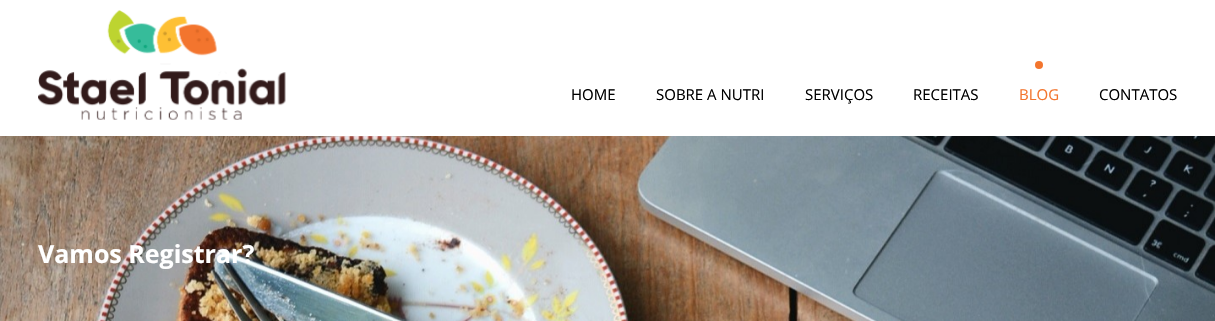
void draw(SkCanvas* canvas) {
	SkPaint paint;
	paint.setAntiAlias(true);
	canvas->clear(0xffffffff);
	canvas->drawImageRect(SkImages::DeferredFromEncodedData(SkData::MakeFromFileName("img1.png")), SkRect::MakeXYWH(38, 10, 248, 110), SkSamplingOptions());
	SkFont f1(fontMgr->matchFamilyStyle("Open Sans", SkFontStyle::Normal()), 15);
	f1.setSubpixel(true);
	paint.setColor(0xff000000);
	canvas->drawString("HOME", 571, 100, f1, paint);
	canvas->drawString("SOBRE A NUTRI", 656, 100, f1, paint);
	canvas->drawString("SERVIÇOS", 805, 100, f1, paint);
	canvas->drawString("RECEITAS", 913, 100, f1, paint);
	paint.setColor(0xfff3752e);
	canvas->drawCircle(1039, 65, 4, paint);
	canvas->drawString("BLOG", 1019, 100, f1, paint);
	paint.setColor(0xff000000);
	canvas->drawString("CONTATOS", 1099, 100, f1, paint);
	canvas->drawImageRect(SkImages::DeferredFromEncodedData(SkData::MakeFromFileName("img2.png")), SkRect::MakeXYWH(0, 136, 1215, 185), SkSamplingOptions());
	SkFont f2(fontMgr->matchFamilyStyle("Open Sans", SkFontStyle::Bold()), 25);
	f2.setSubpixel(true);
	paint.setColor(0xffffffff);
	canvas->drawString("Vamos Registrar?", 38, 263, f2, paint);
}
